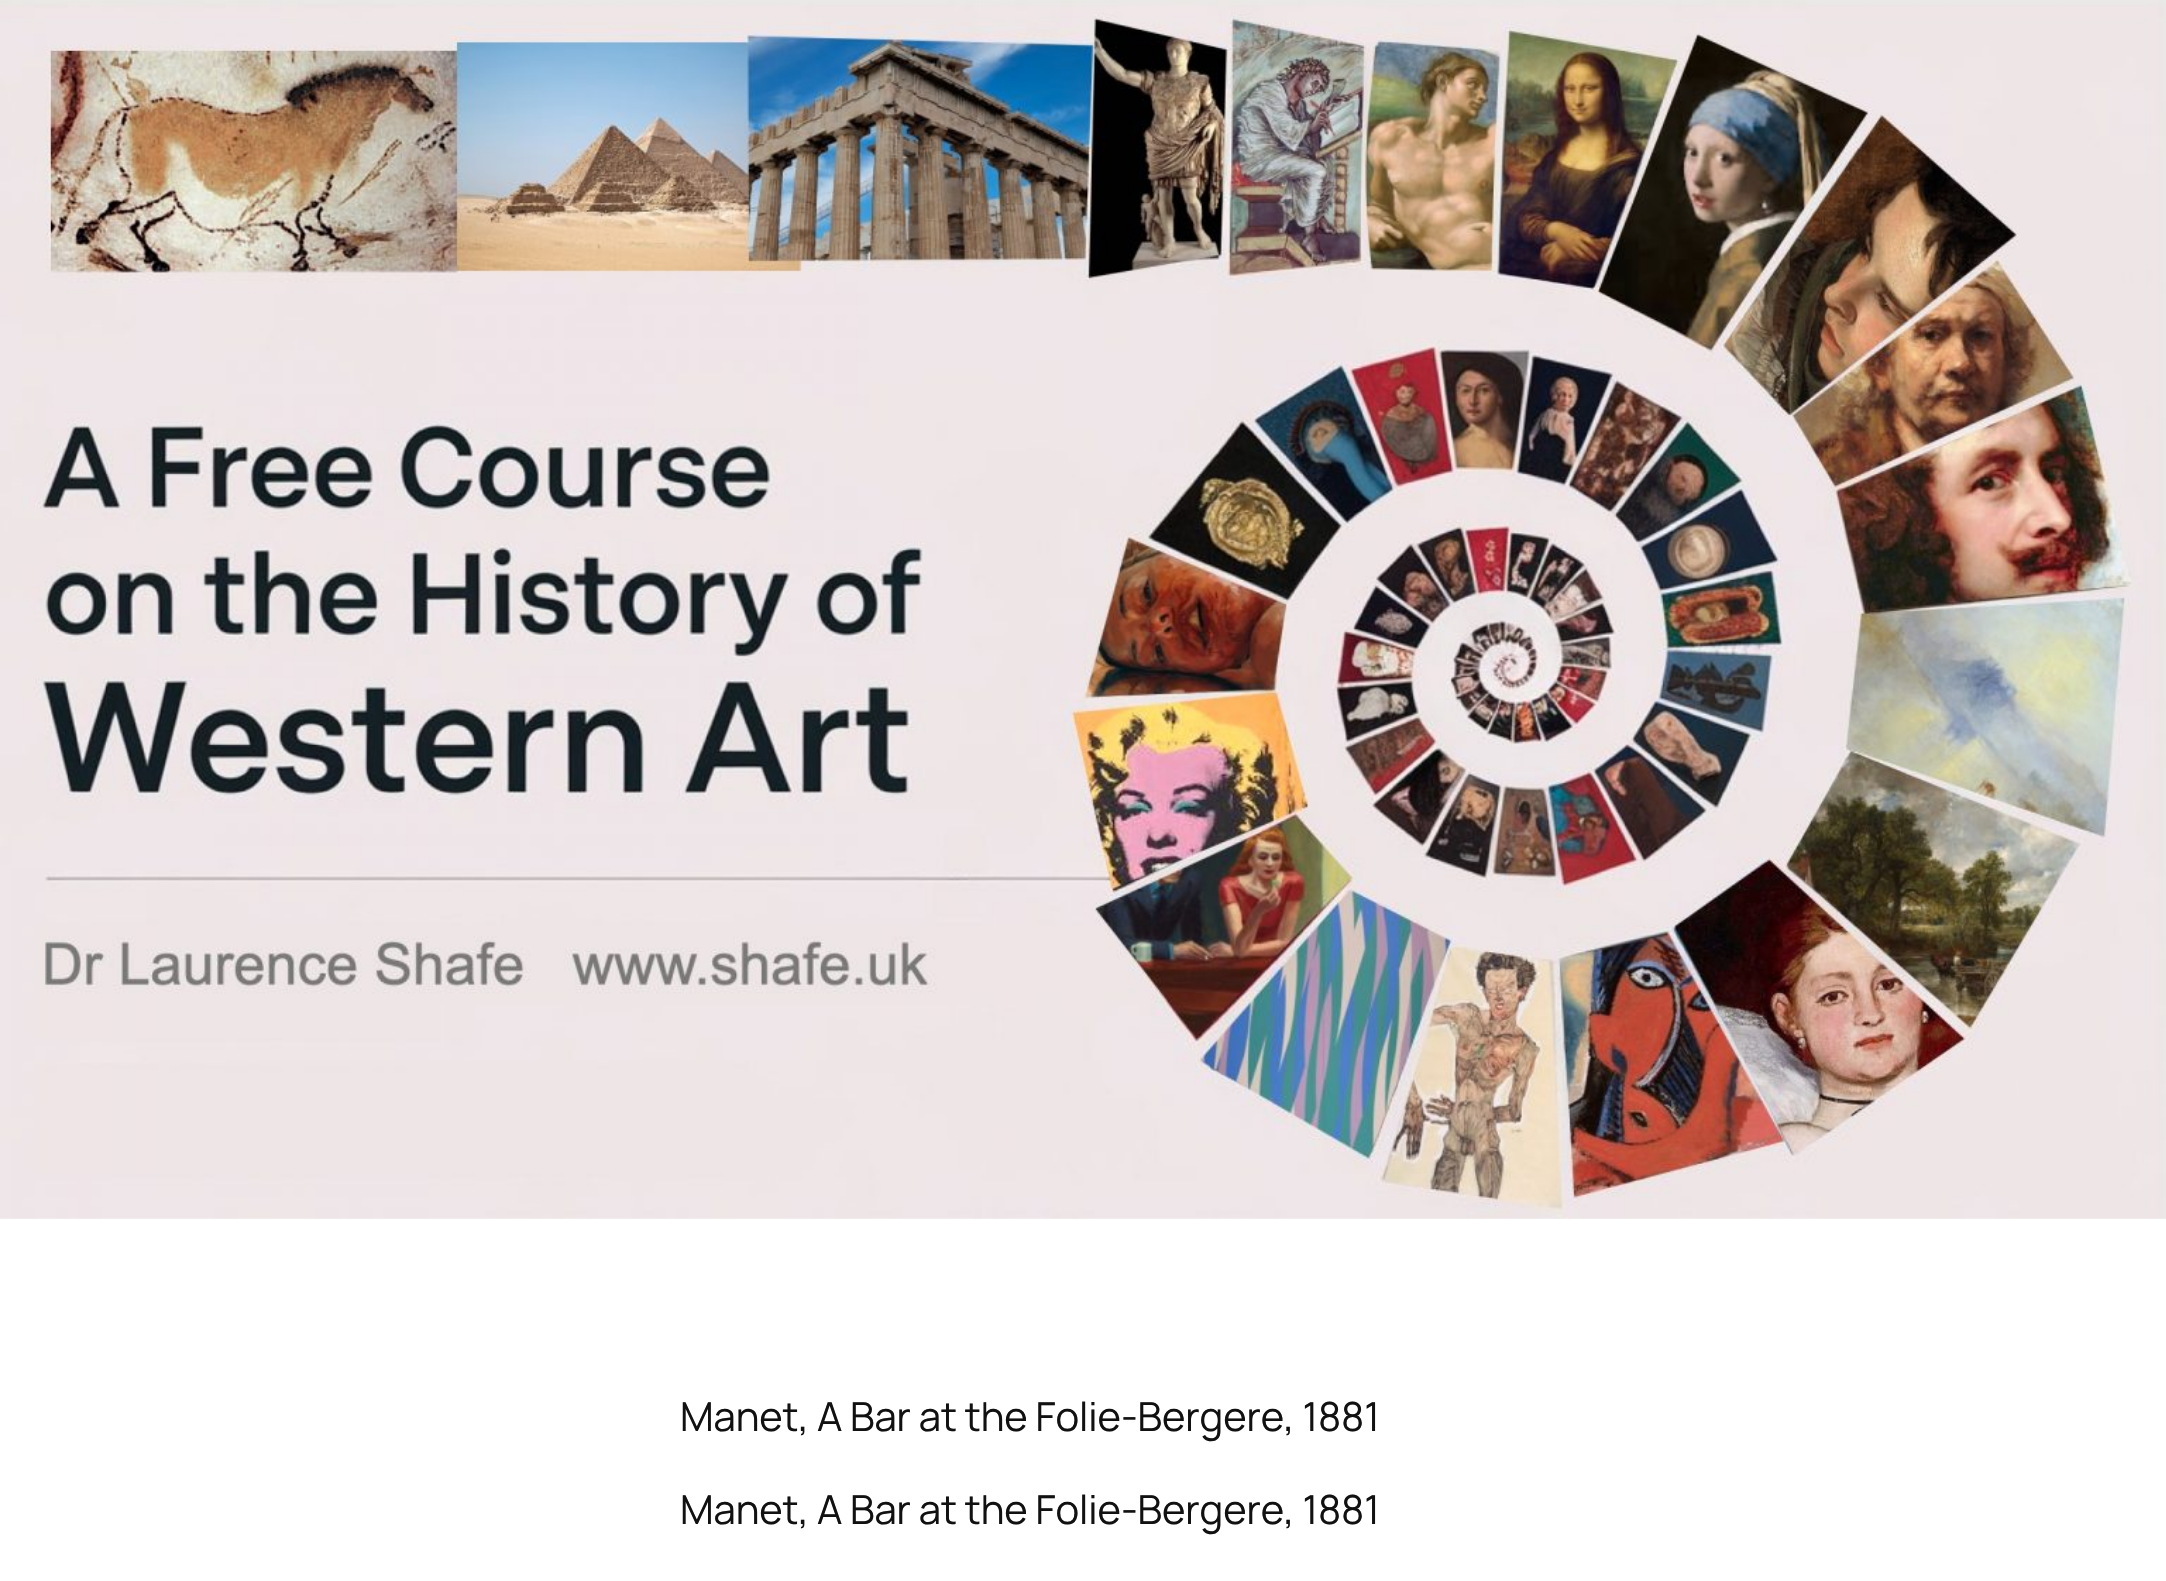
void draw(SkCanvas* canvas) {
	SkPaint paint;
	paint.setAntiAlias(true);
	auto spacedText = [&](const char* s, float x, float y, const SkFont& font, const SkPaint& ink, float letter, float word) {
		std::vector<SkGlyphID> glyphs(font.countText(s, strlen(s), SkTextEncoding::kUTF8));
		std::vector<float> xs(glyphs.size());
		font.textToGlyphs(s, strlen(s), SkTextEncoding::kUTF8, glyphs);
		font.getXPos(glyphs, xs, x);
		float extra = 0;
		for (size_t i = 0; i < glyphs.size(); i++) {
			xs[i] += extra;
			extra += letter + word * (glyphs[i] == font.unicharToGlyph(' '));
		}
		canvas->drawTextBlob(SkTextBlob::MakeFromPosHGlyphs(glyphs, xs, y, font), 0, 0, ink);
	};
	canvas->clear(0xffffffff);
	canvas->drawImageRect(SkImages::DeferredFromEncodedData(SkData::MakeFromFileName("img1.png")), SkRect::MakeXYWH(0, 0, 2166, 1219), SkSamplingOptions());
	SkFont f1(fontMgr->matchFamilyStyle("Manrope", SkFontStyle::Normal()), 40);
	f1.setSubpixel(true);
	paint.setColor(0xff111111);
	spacedText("Manet, A Bar at the Folie-Bergere, 1881", 680, 1431, f1, paint, -0.1, 0);
	spacedText("Manet, A Bar at the Folie-Bergere, 1881", 680, 1524, f1, paint, -0.1, 0);
}
